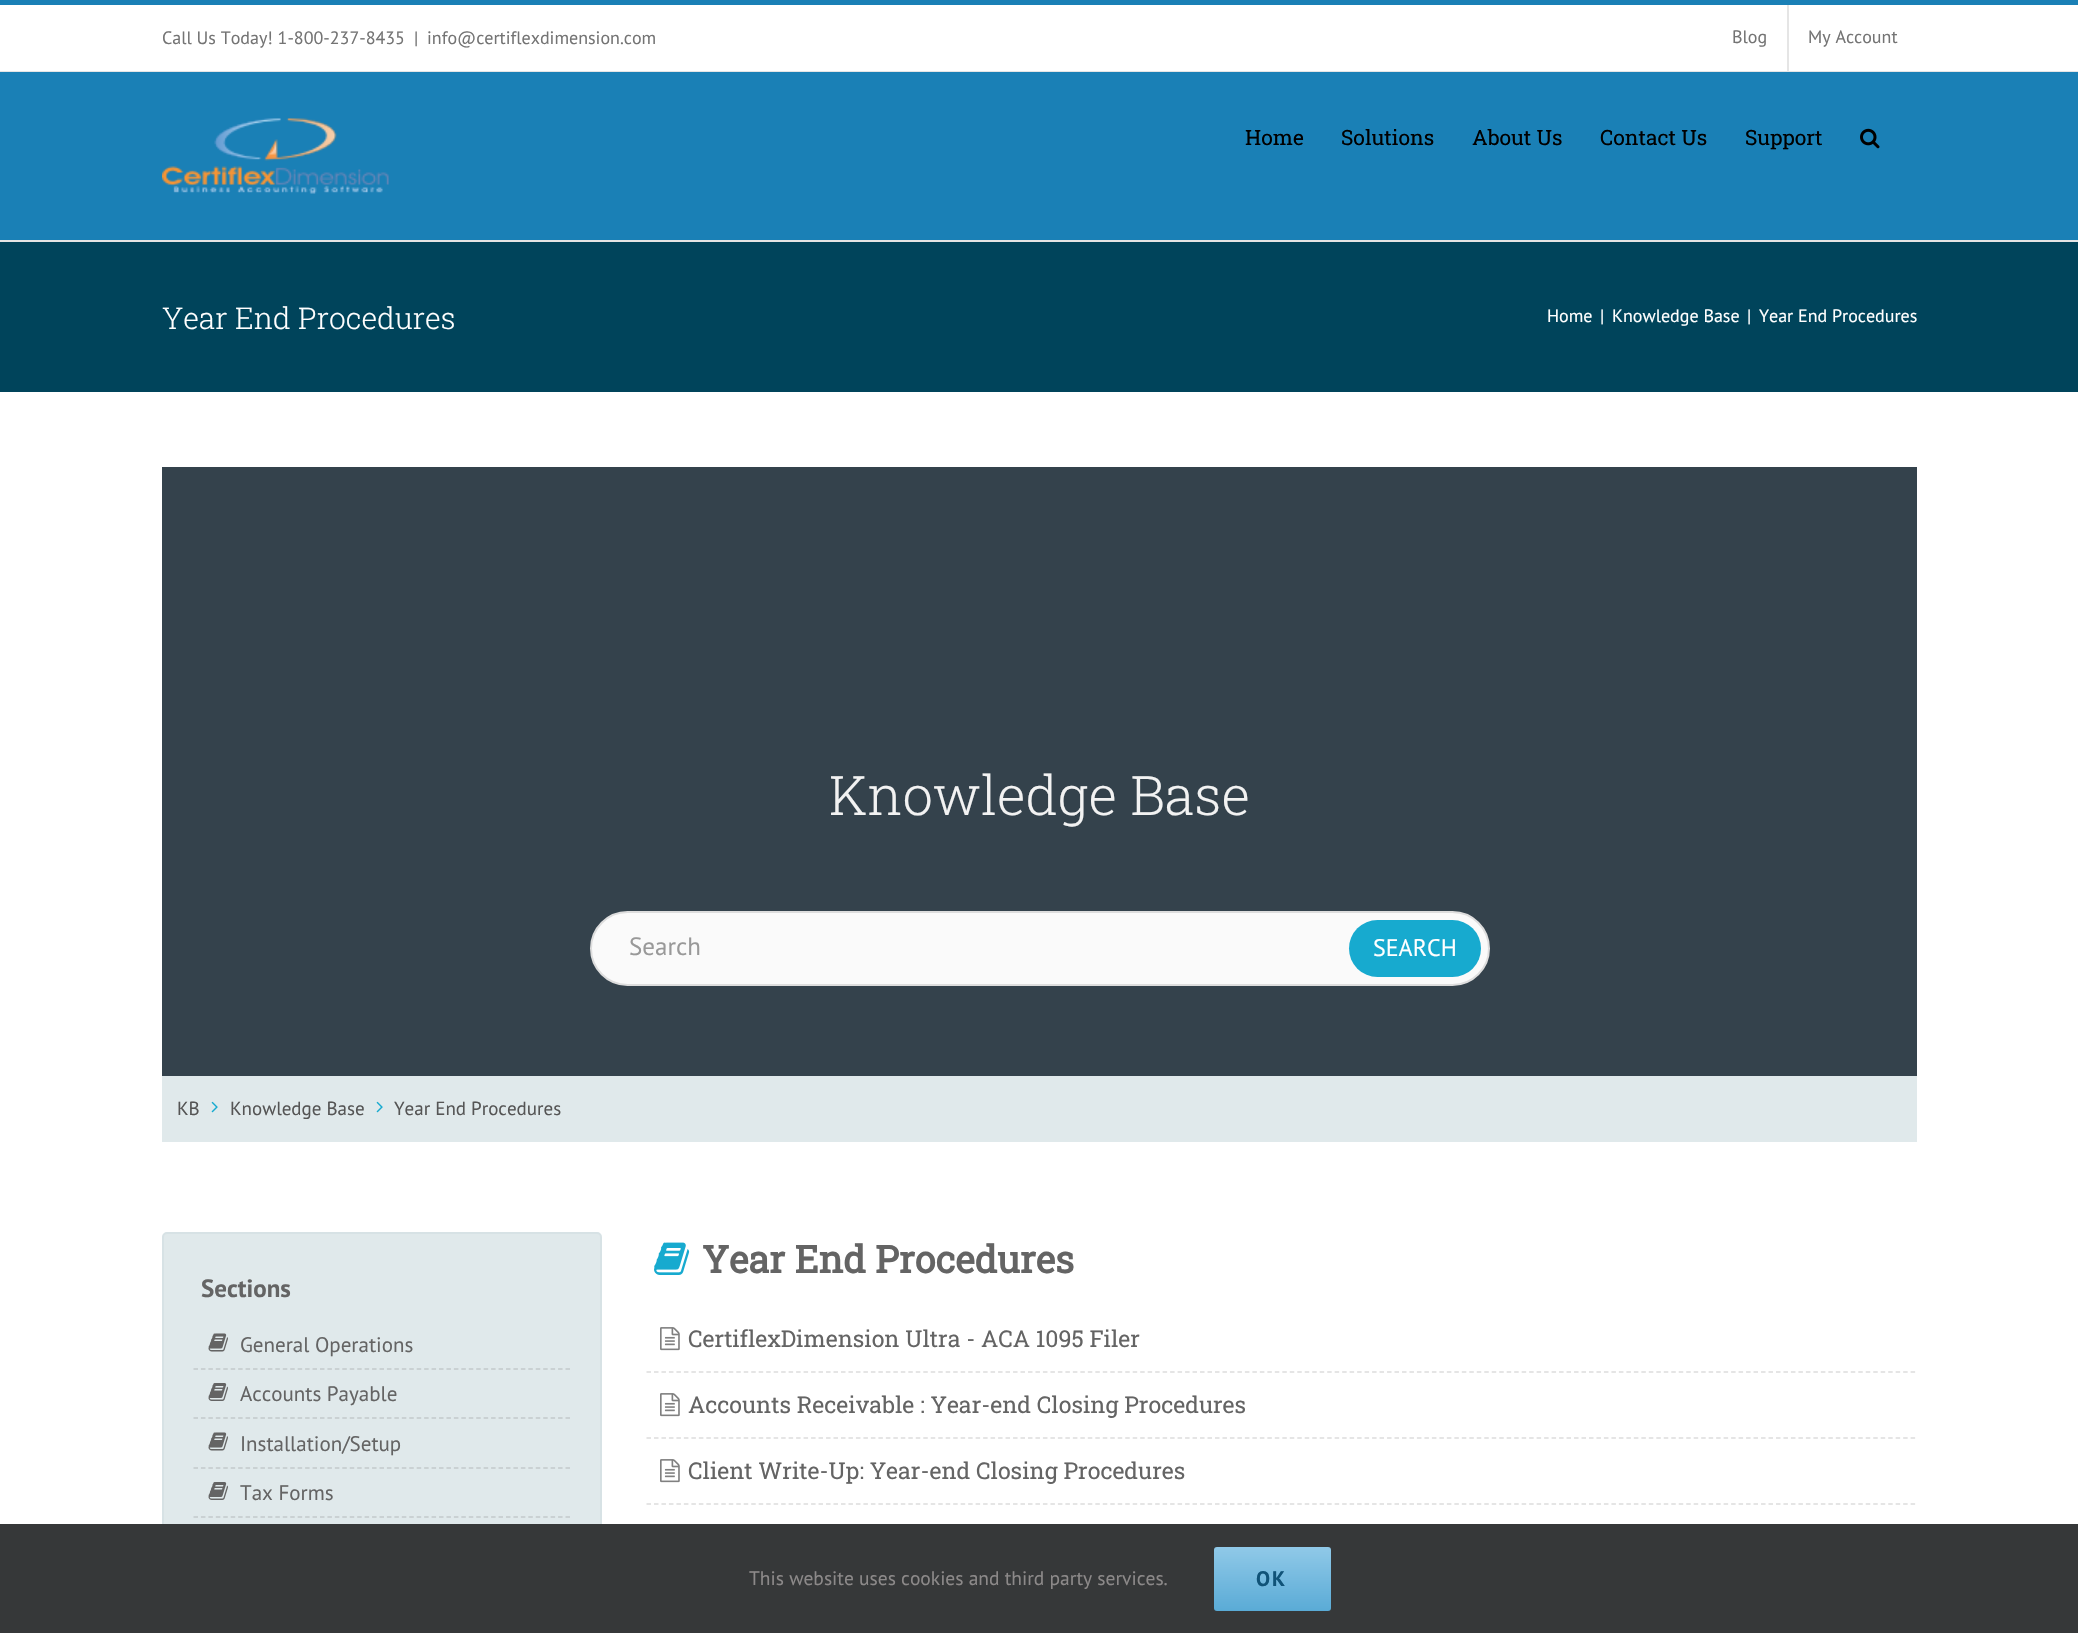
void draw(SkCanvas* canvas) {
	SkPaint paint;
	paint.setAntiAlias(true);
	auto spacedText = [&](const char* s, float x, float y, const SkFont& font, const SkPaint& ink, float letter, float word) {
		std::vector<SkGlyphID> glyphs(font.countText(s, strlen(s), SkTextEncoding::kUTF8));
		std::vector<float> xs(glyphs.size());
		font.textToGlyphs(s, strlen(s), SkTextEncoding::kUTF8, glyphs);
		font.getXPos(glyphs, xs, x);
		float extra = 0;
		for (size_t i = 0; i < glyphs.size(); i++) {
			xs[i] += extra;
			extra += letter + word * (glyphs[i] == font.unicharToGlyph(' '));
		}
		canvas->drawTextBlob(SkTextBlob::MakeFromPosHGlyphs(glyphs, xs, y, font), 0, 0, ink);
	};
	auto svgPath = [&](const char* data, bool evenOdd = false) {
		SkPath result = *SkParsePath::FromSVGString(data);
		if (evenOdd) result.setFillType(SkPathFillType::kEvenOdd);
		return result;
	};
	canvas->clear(0xffffffff);
	paint.setColor(0xff1a80b6);
	canvas->drawRect(SkRect::MakeXYWH(0, 0, 2078, 5), paint);
	paint.setColor(0xffe5e5e5);
	canvas->drawRect(SkRect::MakeXYWH(0, 71, 2078, 1), paint);
	SkFont f1(fontMgr->matchFamilyStyle("PT Sans", SkFontStyle::Normal()), 18);
	f1.setSubpixel(true);
	paint.setColor(0xff747474);
	canvas->drawString("Call Us Today! 1-800-237-8435", 162, 44, f1, paint);
	canvas->drawString("|", 414, 44, f1, paint);
	canvas->drawString("info@certiflexdimension.com", 427, 44, f1, paint);
	canvas->drawString("Blog", 1732, 43, f1, paint);
	paint.setColor(0xffe5e5e5);
	canvas->drawRect(SkRect::MakeXYWH(1787, 5, 2, 66), paint);
	paint.setColor(0xff747474);
	canvas->drawString("My Account", 1808, 43, f1, paint);
	paint.setColor(0xff1a80b6);
	canvas->drawRect(SkRect::MakeXYWH(0, 72, 2078, 168), paint);
	paint.setColor(0xffe5e5e5);
	canvas->drawRect(SkRect::MakeXYWH(0, 240, 2078, 2), paint);
	canvas->drawImageRect(SkImages::DeferredFromEncodedData(SkData::MakeFromFileName("img1.png")), SkRect::MakeXYWH(162, 118, 227, 76), SkSamplingOptions());
	SkFont f2(fontMgr->matchFamilyStyle("Roboto Slab", SkFontStyle::Normal()), 21);
	f2.setSubpixel(true);
	paint.setColor(0xff000000);
	canvas->drawString("Home", 1245, 145, f2, paint);
	canvas->drawString("Solutions", 1341, 145, f2, paint);
	canvas->drawString("About Us", 1472, 145, f2, paint);
	canvas->drawString("Contact Us", 1600, 145, f2, paint);
	canvas->drawString("Support", 1745, 145, f2, paint);
	canvas->drawImageRect(SkImages::DeferredFromEncodedData(SkData::MakeFromFileName("img2.png")), SkRect::MakeXYWH(1860, 128, 20, 21), SkSamplingOptions());
	paint.setColor(0xff00445b);
	canvas->drawRect(SkRect::MakeXYWH(0, 242, 2078, 150), paint);
	SkFont f3(fontMgr->matchFamilyStyle("Roboto Slab", SkFontStyle(300, SkFontStyle::kNormal_Width, SkFontStyle::kUpright_Slant)), 30);
	f3.setSubpixel(true);
	paint.setColor(0xffffffff);
	canvas->drawString("Year End Procedures", 162, 329, f3, paint);
	canvas->drawString("Home", 1547, 322, f1, paint);
	canvas->drawString("|", 1600, 322, f1, paint);
	canvas->drawString("Knowledge Base", 1612, 322, f1, paint);
	canvas->drawString("|", 1747, 322, f1, paint);
	canvas->drawString("Year End Procedures", 1759, 322, f1, paint);
	paint.setColor(0xff34424c);
	canvas->drawRect(SkRect::MakeXYWH(162, 467, 1755, 609), paint);
	SkFont f4(fontMgr->matchFamilyStyle("Roboto Slab", SkFontStyle(300, SkFontStyle::kNormal_Width, SkFontStyle::kUpright_Slant)), 54.5);
	f4.setSubpixel(true);
	paint.setColor(0xfff2f2f2);
	canvas->drawString("Knowledge Base", 829, 815, f4, paint);
	paint.setColor(0xfffafafa);
	canvas->drawRoundRect(SkRect::MakeXYWH(591, 912, 898, 73), 36.5, 36.5, paint);
	paint.setStroke(true);
	paint.setStrokeWidth(2);
	paint.setColor(0xffdddddd);
	canvas->drawRoundRect(SkRect::MakeXYWH(591, 912, 898, 73), 36.5, 36.5, paint);
	SkFont f5(fontMgr->matchFamilyStyle("PT Sans", SkFontStyle::Normal()), 25);
	f5.setSubpixel(true);
	paint.setStroke(false);
	paint.setColor(0xff999999);
	canvas->drawString("Search", 629, 955, f5, paint);
	paint.setColor(0xff17aacf);
	canvas->drawRoundRect(SkRect::MakeXYWH(1349, 920, 132, 57), 28.5, 28.5, paint);
	SkFont f6(fontMgr->matchFamilyStyle("PT Sans", SkFontStyle::Normal()), 24);
	f6.setSubpixel(true);
	paint.setColor(0xffffffff);
	canvas->drawString("SEARCH", 1373, 956, f6, paint);
	paint.setColor(0xffe0e9eb);
	canvas->drawRect(SkRect::MakeXYWH(162, 1076, 1755, 66), paint);
	SkFont f7(fontMgr->matchFamilyStyle("PT Sans", SkFontStyle::Normal()), 19);
	f7.setSubpixel(true);
	paint.setColor(0xff555555);
	canvas->drawString("KB", 177, 1115, f7, paint);
	canvas->drawImageRect(SkImages::DeferredFromEncodedData(SkData::MakeFromFileName("img3.png")), SkRect::MakeXYWH(211, 1101, 7, 12), SkSamplingOptions());
	canvas->drawString("Knowledge Base", 230, 1115, f7, paint);
	canvas->drawImageRect(SkImages::DeferredFromEncodedData(SkData::MakeFromFileName("img3.png")), SkRect::MakeXYWH(376, 1101, 7, 12), SkSamplingOptions());
	canvas->drawString("Year End Procedures", 394, 1115, f7, paint);
	paint.setColor(0xffe0e9eb);
	canvas->drawRoundRect(SkRect::MakeXYWH(163, 1233, 438, 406), 4, 4, paint);
	paint.setStroke(true);
	paint.setColor(0xffd7e2e5);
	canvas->drawRoundRect(SkRect::MakeXYWH(163, 1233, 438, 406), 4, 4, paint);
	SkFont f8(fontMgr->matchFamilyStyle("PT Sans", SkFontStyle::Bold()), 25);
	f8.setSubpixel(true);
	paint.setStroke(false);
	paint.setColor(0xff646464);
	canvas->drawString("Sections", 201, 1297, f8, paint);
	paint.setStroke(true);
	paint.setStrokeWidth(1.5);
	paint.setColor(0xffc3cacb);
	paint.setPathEffect(SkDashPathEffect::Make({{4.5f, 2.94f}}, 0));
	canvas->drawPath(svgPath("M193.5 1369H570"), paint);
	paint.setPathEffect(nullptr);
	canvas->drawImageRect(SkImages::DeferredFromEncodedData(SkData::MakeFromFileName("img4.png")), SkRect::MakeXYWH(208, 1333, 20, 19), SkSamplingOptions());
	SkFont f9(fontMgr->matchFamilyStyle("PT Sans", SkFontStyle::Normal()), 21);
	f9.setSubpixel(true);
	paint.setStroke(false);
	paint.setColor(0xff646464);
	canvas->drawString("General Operations", 240, 1352, f9, paint);
	paint.setStroke(true);
	paint.setColor(0xffc3cacb);
	paint.setPathEffect(SkDashPathEffect::Make({{4.5f, 2.94f}}, 0));
	canvas->drawPath(svgPath("M193.5 1418H570"), paint);
	paint.setPathEffect(nullptr);
	canvas->drawImageRect(SkImages::DeferredFromEncodedData(SkData::MakeFromFileName("img5.png")), SkRect::MakeXYWH(208, 1383, 20, 18), SkSamplingOptions());
	paint.setStroke(false);
	paint.setColor(0xff646464);
	canvas->drawString("Accounts Payable", 240, 1401, f9, paint);
	paint.setStroke(true);
	paint.setColor(0xffc3cacb);
	paint.setPathEffect(SkDashPathEffect::Make({{4.5f, 2.94f}}, 0));
	canvas->drawPath(svgPath("M193.5 1468H570"), paint);
	paint.setPathEffect(nullptr);
	canvas->drawImageRect(SkImages::DeferredFromEncodedData(SkData::MakeFromFileName("img4.png")), SkRect::MakeXYWH(208, 1432, 20, 19), SkSamplingOptions());
	paint.setStroke(false);
	paint.setColor(0xff646464);
	canvas->drawString("Installation/Setup", 240, 1451, f9, paint);
	paint.setStroke(true);
	paint.setColor(0xffc3cacb);
	paint.setPathEffect(SkDashPathEffect::Make({{4.5f, 2.94f}}, 0));
	canvas->drawPath(svgPath("M193.5 1517H570"), paint);
	paint.setPathEffect(nullptr);
	canvas->drawImageRect(SkImages::DeferredFromEncodedData(SkData::MakeFromFileName("img5.png")), SkRect::MakeXYWH(208, 1482, 20, 18), SkSamplingOptions());
	paint.setStroke(false);
	paint.setColor(0xff646464);
	canvas->drawString("Tax Forms", 240, 1500, f9, paint);
	canvas->drawImageRect(SkImages::DeferredFromEncodedData(SkData::MakeFromFileName("img6.png")), SkRect::MakeXYWH(654, 1242, 36, 33), SkSamplingOptions());
	SkFont f10(fontMgr->matchFamilyStyle("Roboto Slab", SkFontStyle::Bold()), 37.75);
	f10.setSubpixel(true);
	canvas->drawString("Year End Procedures", 702, 1273, f10, paint);
	paint.setStroke(true);
	paint.setColor(0xffdddddd);
	paint.setPathEffect(SkDashPathEffect::Make({{4.5f, 2.98f}}, 0));
	canvas->drawPath(svgPath("M646.5 1372H1917"), paint);
	paint.setPathEffect(nullptr);
	canvas->drawImageRect(SkImages::DeferredFromEncodedData(SkData::MakeFromFileName("img7.png")), SkRect::MakeXYWH(660, 1327, 20, 24), SkSamplingOptions());
	SkFont f11(fontMgr->matchFamilyStyle("Roboto Slab", SkFontStyle::Normal()), 23.1);
	f11.setSubpixel(true);
	paint.setStroke(false);
	paint.setColor(0xff646464);
	canvas->drawString("CertiflexDimension Ultra - ACA 1095 Filer", 688, 1347, f11, paint);
	paint.setStroke(true);
	paint.setColor(0xffdddddd);
	paint.setPathEffect(SkDashPathEffect::Make({{4.5f, 2.98f}}, 0));
	canvas->drawPath(svgPath("M646.5 1438H1917"), paint);
	paint.setPathEffect(nullptr);
	canvas->drawImageRect(SkImages::DeferredFromEncodedData(SkData::MakeFromFileName("img7.png")), SkRect::MakeXYWH(660, 1393, 20, 24), SkSamplingOptions());
	paint.setStroke(false);
	paint.setColor(0xff646464);
	canvas->drawString("Accounts Receivable : Year-end Closing Procedures", 688, 1413, f11, paint);
	paint.setStroke(true);
	paint.setColor(0xffdddddd);
	paint.setPathEffect(SkDashPathEffect::Make({{4.5f, 2.98f}}, 0));
	canvas->drawPath(svgPath("M646.5 1504H1917"), paint);
	paint.setPathEffect(nullptr);
	canvas->drawImageRect(SkImages::DeferredFromEncodedData(SkData::MakeFromFileName("img7.png")), SkRect::MakeXYWH(660, 1459, 20, 24), SkSamplingOptions());
	paint.setStroke(false);
	paint.setColor(0xff646464);
	canvas->drawString("Client Write-Up: Year-end Closing Procedures", 688, 1479, f11, paint);
	paint.setColor(0xff363839);
	canvas->drawRect(SkRect::MakeXYWH(0, 1524, 2078, 109), paint);
	SkFont f12(fontMgr->matchFamilyStyle("PT Sans", SkFontStyle::Normal()), 19.5);
	f12.setSubpixel(true);
	paint.setColor(0xff8c8989);
	canvas->drawString("This website uses cookies and third party services.", 749, 1585, f12, paint);
	{
		const SkColor colors[] = {0xff90c9e8, 0xff5aabd6};
		const float stops[] = {0, 1};
		const SkPoint ends[] = {{1272, 1547}, {1272, 1611}};
		paint.setShader(SkGradientShader::MakeLinear(ends, colors, stops, 2, SkTileMode::kClamp));
		paint.setAlpha(255);
	}
	canvas->drawRoundRect(SkRect::MakeXYWH(1214, 1547, 117, 64), 3, 3, paint);
	SkFont f13(fontMgr->matchFamilyStyle("PT Sans", SkFontStyle::Bold()), 21);
	f13.setSubpixel(true);
	paint.setShader(nullptr);
	paint.setColor(0xff105378);
	spacedText("OK", 1256, 1586, f13, paint, 2, 0);
}
